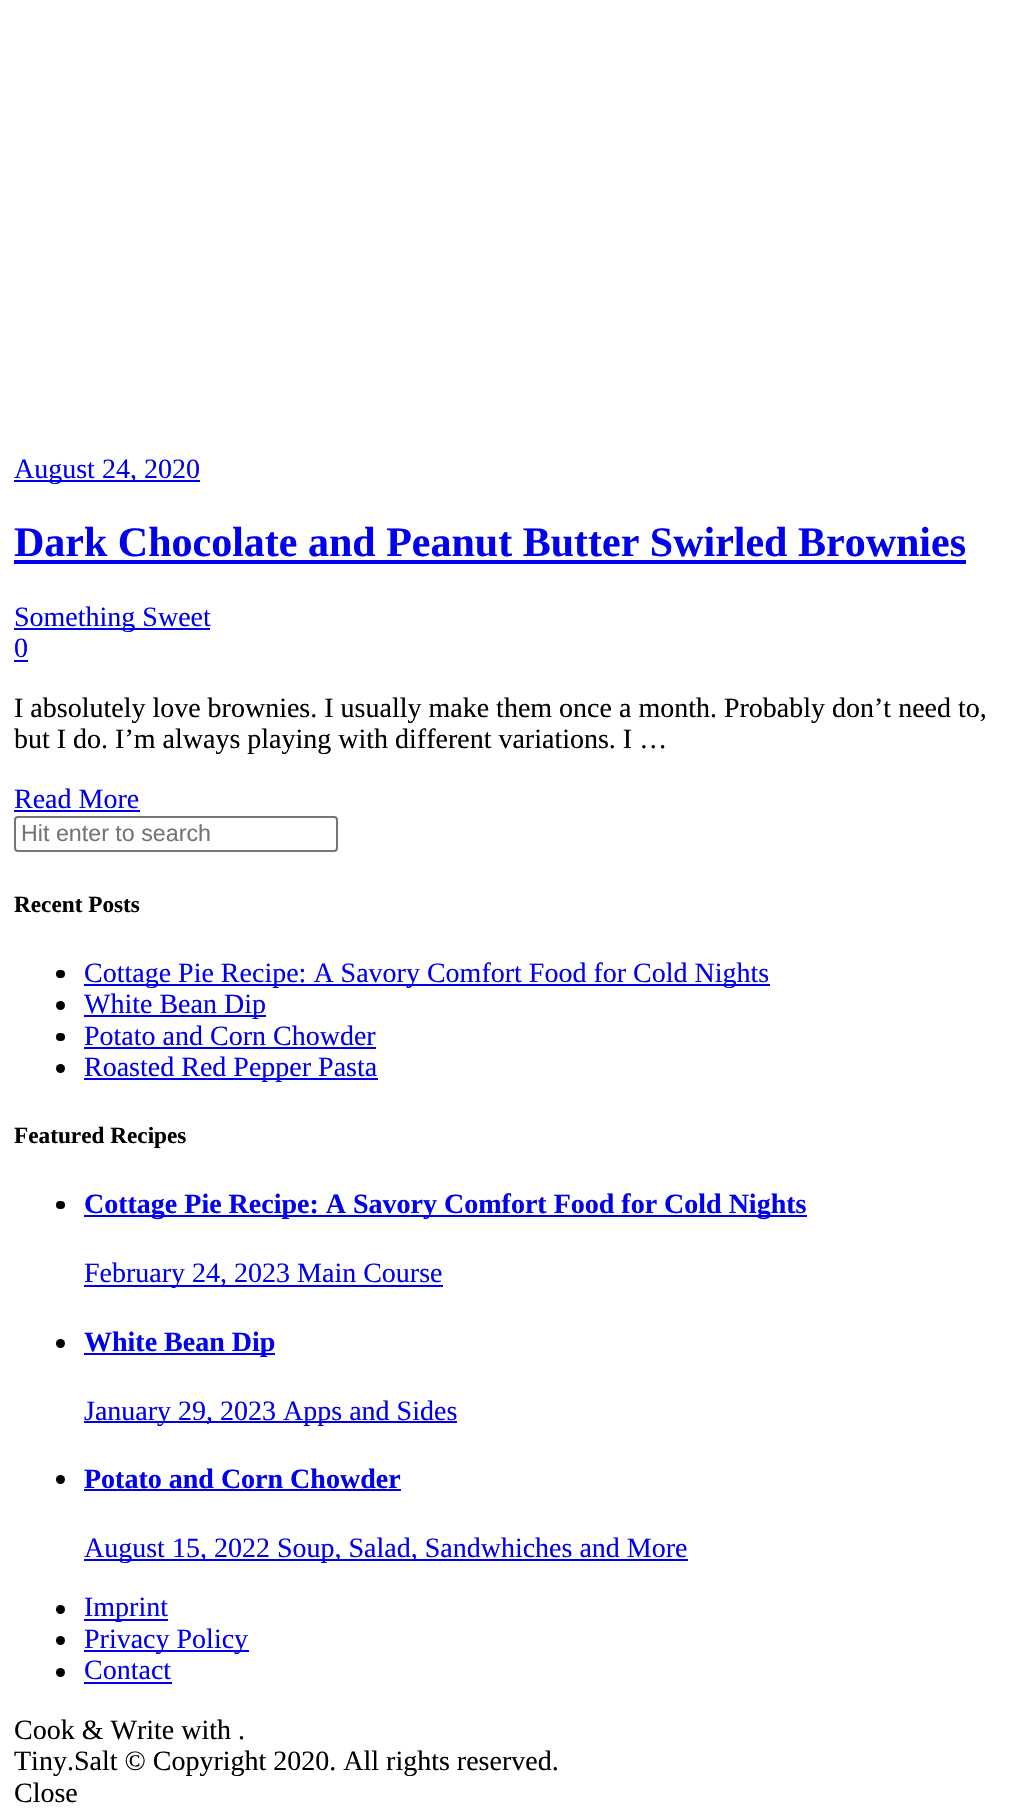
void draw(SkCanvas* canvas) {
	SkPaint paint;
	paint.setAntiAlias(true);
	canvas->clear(0xffffffff);
	paint.setColor(0xff0000ee);
	canvas->drawRect(SkRect::MakeXYWH(14, 480, 186, 2), paint);
	SkFont f1(fontMgr->matchFamilyStyle("Liberation Serif", SkFontStyle::Normal()), 28);
	f1.setSubpixel(true);
	canvas->drawString("August 24, 2020", 14, 478, f1, paint);
	SkFont f2(fontMgr->matchFamilyStyle("Liberation Serif", SkFontStyle::Bold()), 42);
	f2.setSubpixel(true);
	canvas->drawString("Dark Chocolate and Peanut Butter Swirled Brownies", 14, 556, f2, paint);
	canvas->drawRect(SkRect::MakeXYWH(14, 560, 952, 4), paint);
	canvas->drawRect(SkRect::MakeXYWH(14, 628, 196, 2), paint);
	canvas->drawString("Something Sweet", 14, 626, f1, paint);
	canvas->drawString("0", 14, 657, f1, paint);
	canvas->drawRect(SkRect::MakeXYWH(14, 660, 14, 2), paint);
	paint.setColor(0xff000000);
	canvas->drawString("I absolutely love brownies. I usually make them once a month. Probably don’t need to,", 14, 717, f1, paint);
	canvas->drawString("but I do. I’m always playing with different variations. I …", 14, 748, f1, paint);
	paint.setColor(0xff0000ee);
	canvas->drawString("Read More", 14, 808, f1, paint);
	canvas->drawRect(SkRect::MakeXYWH(14, 810, 126, 2), paint);
	paint.setStroke(true);
	paint.setStrokeWidth(2);
	paint.setColor(0xff767676);
	canvas->drawRoundRect(SkRect::MakeXYWH(15, 817, 322, 34), 3, 3, paint);
	SkFont f3(fontMgr->matchFamilyStyle("Liberation Sans", SkFontStyle::Normal()), 23.25);
	f3.setSubpixel(true);
	paint.setStroke(false);
	paint.setColor(0xff757575);
	canvas->drawString("Hit enter to search", 21, 841, f3, paint);
	SkFont f4(fontMgr->matchFamilyStyle("Liberation Serif", SkFontStyle::Bold()), 23.25);
	f4.setSubpixel(true);
	paint.setColor(0xff000000);
	canvas->drawString("Recent Posts", 14, 912, f4, paint);
	canvas->drawRoundRect(SkRect::MakeXYWH(56, 970, 9, 8), 4, 4, paint);
	paint.setColor(0xff0000ee);
	canvas->drawRect(SkRect::MakeXYWH(84, 984, 686, 2), paint);
	canvas->drawString("Cottage Pie Recipe: A Savory Comfort Food for Cold Nights", 84, 982, f1, paint);
	paint.setColor(0xff000000);
	canvas->drawCircle(60.5, 1005.5, 4.5, paint);
	paint.setColor(0xff0000ee);
	canvas->drawRect(SkRect::MakeXYWH(84, 1015, 182, 2), paint);
	canvas->drawString("White Bean Dip", 84, 1013, f1, paint);
	paint.setColor(0xff000000);
	canvas->drawRoundRect(SkRect::MakeXYWH(56, 1033, 9, 8), 4, 4, paint);
	paint.setColor(0xff0000ee);
	canvas->drawString("Potato and Corn Chowder", 84, 1045, f1, paint);
	canvas->drawRect(SkRect::MakeXYWH(84, 1047, 292, 2), paint);
	paint.setColor(0xff000000);
	canvas->drawCircle(60.5, 1068.5, 4.5, paint);
	paint.setColor(0xff0000ee);
	canvas->drawRect(SkRect::MakeXYWH(84, 1078, 294, 2), paint);
	canvas->drawString("Roasted Red Pepper Pasta", 84, 1076, f1, paint);
	paint.setColor(0xff000000);
	canvas->drawString("Featured Recipes", 14, 1143, f4, paint);
	canvas->drawRoundRect(SkRect::MakeXYWH(56, 1201, 9, 8), 4, 4, paint);
	paint.setColor(0xff0000ee);
	canvas->drawRect(SkRect::MakeXYWH(84, 1215, 723, 2), paint);
	SkFont f5(fontMgr->matchFamilyStyle("Liberation Serif", SkFontStyle::Bold()), 28);
	f5.setSubpixel(true);
	canvas->drawString("Cottage Pie Recipe: A Savory Comfort Food for Cold Nights", 84, 1213, f5, paint);
	canvas->drawRect(SkRect::MakeXYWH(84, 1285, 359, 2), paint);
	canvas->drawString("February 24, 2023 Main Course", 84, 1282, f1, paint);
	paint.setColor(0xff000000);
	canvas->drawCircle(60.5, 1343.5, 4.5, paint);
	paint.setColor(0xff0000ee);
	canvas->drawRect(SkRect::MakeXYWH(84, 1353, 191, 2), paint);
	canvas->drawString("White Bean Dip", 84, 1351, f5, paint);
	canvas->drawRect(SkRect::MakeXYWH(84, 1421, 373, 2), paint);
	canvas->drawString("January 29, 2023 Apps and Sides", 84, 1420, f1, paint);
	paint.setColor(0xff000000);
	canvas->drawCircle(60.5, 1479.5, 4.5, paint);
	paint.setColor(0xff0000ee);
	canvas->drawString("Potato and Corn Chowder", 84, 1488, f5, paint);
	canvas->drawRect(SkRect::MakeXYWH(84, 1489, 317, 2), paint);
	canvas->drawRect(SkRect::MakeXYWH(84, 1559, 604, 2), paint);
	canvas->drawString("August 15, 2022 Soup, Salad, Sandwhiches and More", 84, 1557, f1, paint);
	paint.setColor(0xff000000);
	canvas->drawCircle(60.5, 1609.5, 4.5, paint);
	paint.setColor(0xff0000ee);
	canvas->drawRect(SkRect::MakeXYWH(84, 1619, 84, 2), paint);
	canvas->drawString("Imprint", 84, 1616, f1, paint);
	paint.setColor(0xff000000);
	canvas->drawCircle(60.5, 1640.5, 4.5, paint);
	paint.setColor(0xff0000ee);
	canvas->drawRect(SkRect::MakeXYWH(84, 1650, 165, 2), paint);
	canvas->drawString("Privacy Policy", 84, 1648, f1, paint);
	paint.setColor(0xff000000);
	canvas->drawCircle(60.5, 1672.5, 4.5, paint);
	paint.setColor(0xff0000ee);
	canvas->drawString("Contact", 84, 1679, f1, paint);
	canvas->drawRect(SkRect::MakeXYWH(84, 1682, 88, 2), paint);
	paint.setColor(0xff000000);
	canvas->drawString("Cook & Write with .", 14, 1739, f1, paint);
	canvas->drawString("Tiny.Salt © Copyright 2020. All rights reserved.", 14, 1770, f1, paint);
	canvas->drawString("Close", 14, 1802, f1, paint);
}
